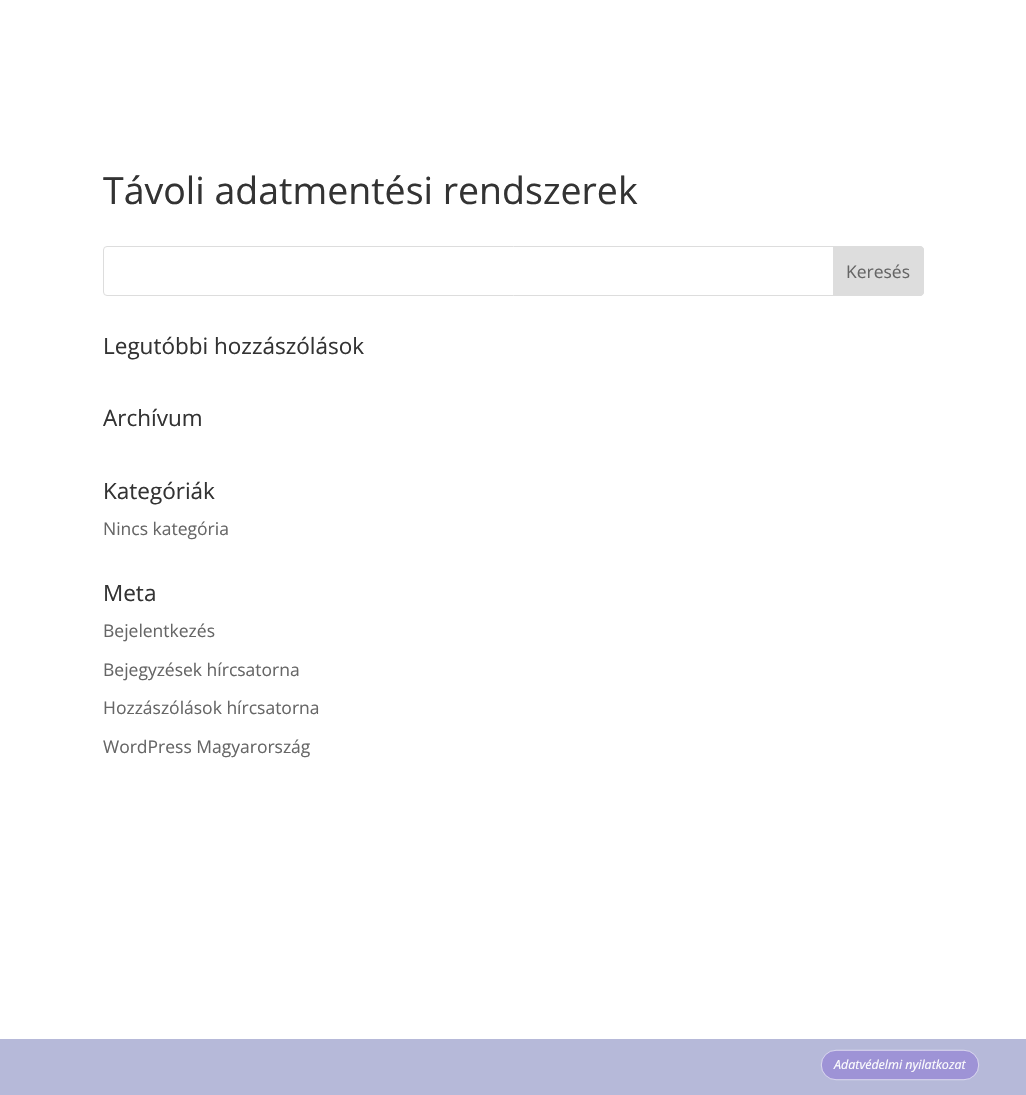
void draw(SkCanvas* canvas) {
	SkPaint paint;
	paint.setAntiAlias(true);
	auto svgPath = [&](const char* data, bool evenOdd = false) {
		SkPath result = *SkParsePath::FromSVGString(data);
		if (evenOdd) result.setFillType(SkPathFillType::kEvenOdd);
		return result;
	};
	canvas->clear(0xffffffff);
	SkFont f1(fontMgr->matchFamilyStyle("Open Sans", SkFontStyle::Normal()), 37.5);
	f1.setSubpixel(true);
	paint.setColor(0xff333333);
	canvas->drawString("Távoli adatmentési rendszerek", 103, 204, f1, paint);
	paint.setStroke(true);
	paint.setStrokeWidth(1);
	paint.setColor(0xffdddddd);
	canvas->drawRoundRect(SkRect::MakeXYWH(103.5, 246.5, 820, 49), 3.5, 3.5, paint);
	paint.setStroke(false);
	canvas->drawPath(svgPath("M833.5 246.5H920C922 246.5 923.5 248 923.5 250V292C923.5 294 922 295.5 920 295.5H833.5Z"), paint);
	paint.setStroke(true);
	canvas->drawPath(svgPath("M833.5 246.5H920C922 246.5 923.5 248 923.5 250V292C923.5 294 922 295.5 920 295.5H833.5Z"), paint);
	SkFont f2(fontMgr->matchFamilyStyle("Open Sans", SkFontStyle::Normal()), 17.5);
	f2.setSubpixel(true);
	paint.setStroke(false);
	paint.setColor(0xff666666);
	canvas->drawString("Keresés", 846, 278, f2, paint);
	SkFont f3(fontMgr->matchFamilyStyle("Open Sans", SkFontStyle::Normal()), 22.5);
	f3.setSubpixel(true);
	paint.setColor(0xff333333);
	canvas->drawString("Legutóbbi hozzászólások", 103, 354, f3, paint);
	canvas->drawString("Archívum", 103, 426, f3, paint);
	canvas->drawString("Kategóriák", 103, 499, f3, paint);
	paint.setColor(0xff666666);
	canvas->drawString("Nincs kategória", 103, 535, f2, paint);
	paint.setColor(0xff333333);
	canvas->drawString("Meta", 103, 601, f3, paint);
	paint.setColor(0xff666666);
	canvas->drawString("Bejelentkezés", 103, 637, f2, paint);
	canvas->drawString("Bejegyzések hírcsatorna", 103, 676, f2, paint);
	canvas->drawString("Hozzászólások hírcsatorna", 103, 714, f2, paint);
	canvas->drawString("WordPress Magyarország", 103, 753, f2, paint);
	paint.setColor(0xffb6b9d9);
	canvas->drawRect(SkRect::MakeXYWH(0, 1039, 1026, 56), paint);
	paint.setColor(0xff9e93d6);
	canvas->drawRoundRect(SkRect::MakeXYWH(821.3, 1050.3, 157.4, 29.4), 14.7, 14.7, paint);
	paint.setStroke(true);
	paint.setStrokeWidth(0.6);
	paint.setColor(0xffffffff);
	canvas->drawRoundRect(SkRect::MakeXYWH(821.3, 1050.3, 157.4, 29.4), 14.7, 14.7, paint);
	SkFont f4(fontMgr->matchFamilyStyle("Open Sans", SkFontStyle::Italic()), 12.5);
	f4.setSubpixel(true);
	paint.setStroke(false);
	canvas->drawString("Adatvédelmi nyilatkozat", 834, 1069, f4, paint);
}
